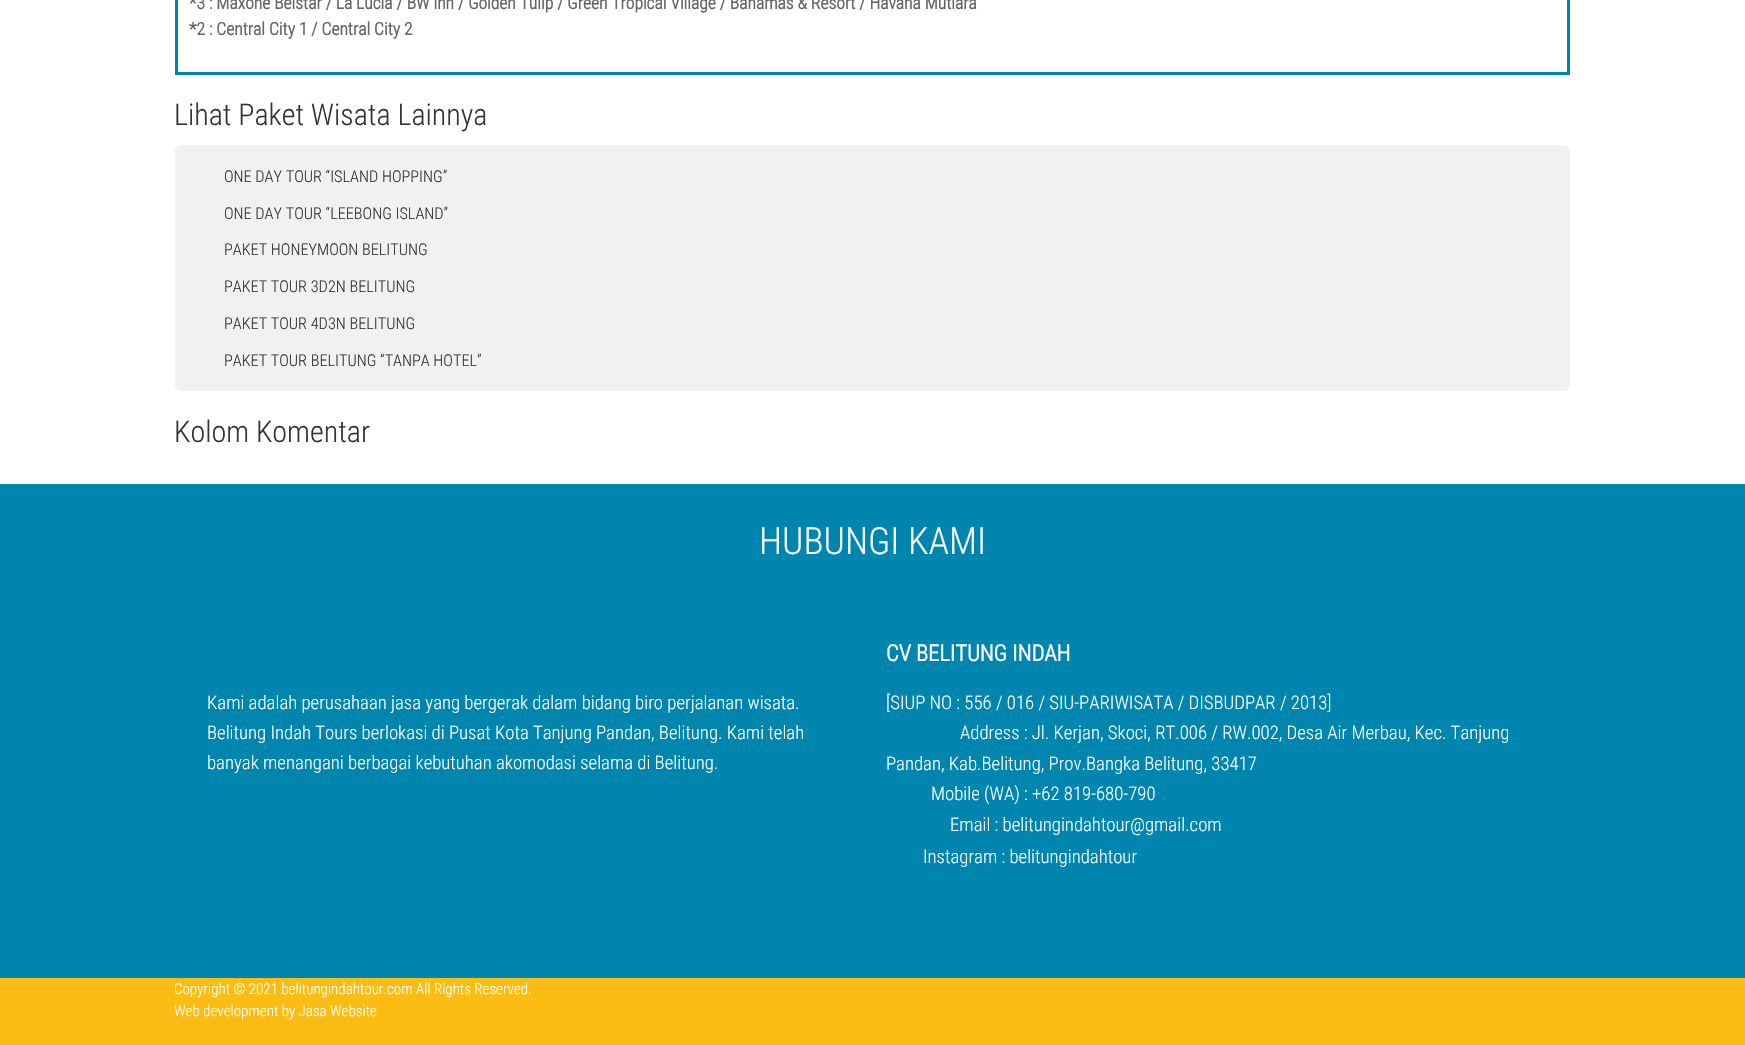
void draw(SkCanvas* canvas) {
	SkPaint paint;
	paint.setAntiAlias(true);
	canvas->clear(0xffffffff);
	paint.setStroke(true);
	paint.setStrokeWidth(3);
	paint.setColor(0xff0085ae);
	canvas->drawRect(SkRect::MakeXYWH(176.5, -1.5, 1392, 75), paint);
	SkFont f1(fontMgr->matchFamilyStyle("Roboto Condensed", SkFontStyle::Bold()), 17.5);
	f1.setSubpixel(true);
	paint.setStroke(false);
	paint.setColor(0xff666666);
	canvas->drawString("*3 : Maxone Belstar / La Lucia / BW inn / Golden Tulip / Green Tropical Village / Bahamas & Resort / Havana Mutiara", 189, 9, f1, paint);
	canvas->drawString("*2 : Central City 1 / Central City 2", 189, 35, f1, paint);
	SkFont f2(fontMgr->matchFamilyStyle("Roboto Condensed", SkFontStyle(300, SkFontStyle::kNormal_Width, SkFontStyle::kUpright_Slant)), 30);
	f2.setSubpixel(true);
	paint.setColor(0xff333333);
	canvas->drawString("Lihat Paket Wisata Lainnya", 174, 125, f2, paint);
	paint.setColor(0xfff1f1f1);
	canvas->drawRoundRect(SkRect::MakeXYWH(175, 145, 1395, 246), 6, 6, paint);
	SkFont f3(fontMgr->matchFamilyStyle("Roboto Condensed", SkFontStyle(300, SkFontStyle::kNormal_Width, SkFontStyle::kUpright_Slant)), 16.25);
	f3.setSubpixel(true);
	paint.setColor(0xff333333);
	canvas->drawString("ONE DAY TOUR “ISLAND HOPPING”", 224, 182, f3, paint);
	canvas->drawString("ONE DAY TOUR “LEEBONG ISLAND”", 224, 219, f3, paint);
	canvas->drawString("PAKET HONEYMOON BELITUNG", 224, 255, f3, paint);
	canvas->drawString("PAKET TOUR 3D2N BELITUNG", 224, 292, f3, paint);
	canvas->drawString("PAKET TOUR 4D3N BELITUNG", 224, 329, f3, paint);
	canvas->drawString("PAKET TOUR BELITUNG “TANPA HOTEL”", 224, 366, f3, paint);
	canvas->drawString("Kolom Komentar", 174, 442, f2, paint);
	paint.setColor(0xff0085ae);
	canvas->drawRect(SkRect::MakeXYWH(0, 484, 1745, 494), paint);
	SkFont f4(fontMgr->matchFamilyStyle("Roboto Condensed", SkFontStyle(300, SkFontStyle::kNormal_Width, SkFontStyle::kUpright_Slant)), 37.5);
	f4.setSubpixel(true);
	paint.setColor(0xffffffff);
	canvas->drawString("HUBUNGI KAMI", 759, 554, f4, paint);
	SkFont f5(fontMgr->matchFamilyStyle("Roboto Condensed", SkFontStyle(300, SkFontStyle::kNormal_Width, SkFontStyle::kUpright_Slant)), 18.75);
	f5.setSubpixel(true);
	canvas->drawString("Kami adalah perusahaan jasa yang bergerak dalam bidang biro perjalanan wisata.", 207, 709, f5, paint);
	canvas->drawString("Belitung Indah Tours berlokasi di Pusat Kota Tanjung Pandan, Belitung. Kami telah", 207, 739, f5, paint);
	canvas->drawString("banyak menangani berbagai kebutuhan akomodasi selama di Belitung.", 207, 769, f5, paint);
	SkFont f6(fontMgr->matchFamilyStyle("Roboto Condensed", SkFontStyle::Bold()), 22.5);
	f6.setSubpixel(true);
	canvas->drawString("CV BELITUNG INDAH", 886, 661, f6, paint);
	canvas->drawString("[SIUP NO : 556 / 016 / SIU-PARIWISATA / DISBUDPAR / 2013]", 886, 709, f5, paint);
	canvas->drawString("Address : Jl. Kerjan, Skoci, RT.006 / RW.002, Desa Air Merbau, Kec. Tanjung", 960, 739, f5, paint);
	canvas->drawString("Pandan, Kab.Belitung, Prov.Bangka Belitung, 33417", 886, 770, f5, paint);
	canvas->drawString("Mobile (WA) : +62 819-680-790", 931, 800, f5, paint);
	canvas->drawString("Email : belitungindahtour@gmail.com", 950, 831, f5, paint);
	canvas->drawString("Instagram : belitungindahtour", 923, 863, f5, paint);
	paint.setColor(0xfffbbd14);
	canvas->drawRect(SkRect::MakeXYWH(0, 978, 1745, 67), paint);
	SkFont f7(fontMgr->matchFamilyStyle("Roboto Condensed", SkFontStyle(300, SkFontStyle::kNormal_Width, SkFontStyle::kUpright_Slant)), 15);
	f7.setSubpixel(true);
	paint.setColor(0xffffffff);
	canvas->drawString("Copyright © 2021 belitungindahtour.com All Rights Reserved.", 174, 994, f7, paint);
	canvas->drawString("Web development by Jasa Website", 174, 1016, f7, paint);
}
